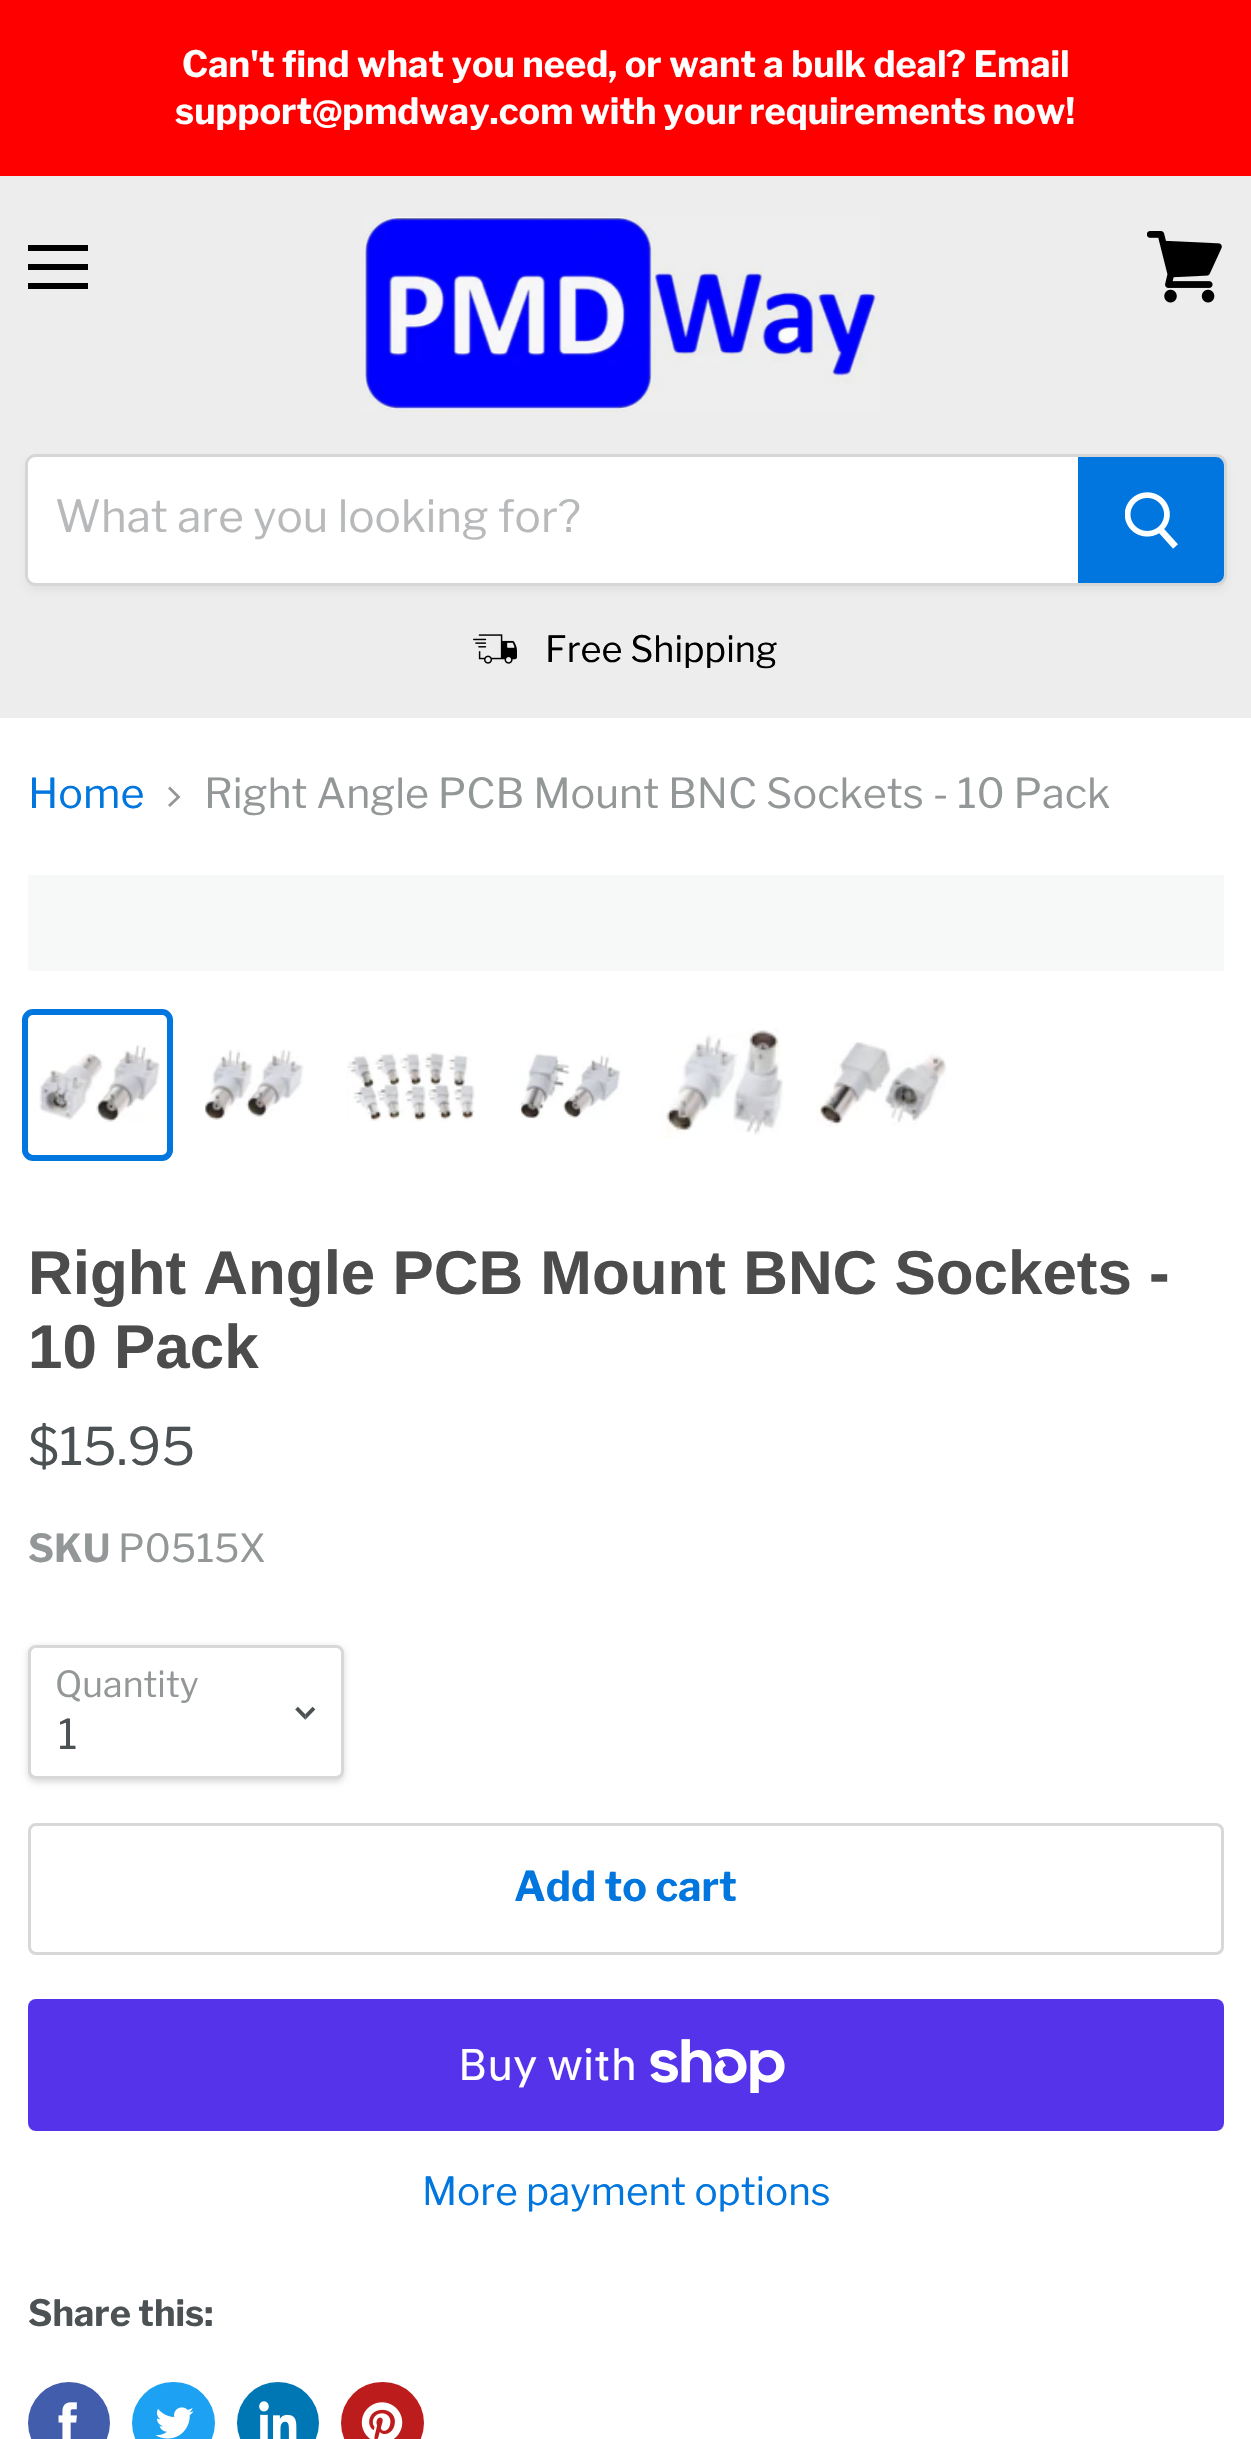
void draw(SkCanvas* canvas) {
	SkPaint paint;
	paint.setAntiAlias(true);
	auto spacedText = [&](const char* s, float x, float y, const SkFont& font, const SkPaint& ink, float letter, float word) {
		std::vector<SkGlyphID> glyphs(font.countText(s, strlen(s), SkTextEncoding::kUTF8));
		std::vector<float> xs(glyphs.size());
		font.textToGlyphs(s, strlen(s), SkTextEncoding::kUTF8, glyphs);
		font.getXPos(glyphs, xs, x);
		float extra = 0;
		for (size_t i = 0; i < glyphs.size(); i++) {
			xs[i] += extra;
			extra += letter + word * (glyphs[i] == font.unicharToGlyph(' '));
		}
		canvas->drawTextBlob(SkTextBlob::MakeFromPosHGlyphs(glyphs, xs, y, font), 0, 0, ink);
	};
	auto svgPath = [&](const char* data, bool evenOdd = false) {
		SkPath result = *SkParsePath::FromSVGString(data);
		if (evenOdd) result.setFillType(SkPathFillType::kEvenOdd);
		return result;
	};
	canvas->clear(0xffffffff);
	paint.setColor(0xffff0000);
	canvas->drawRect(SkRect::MakeXYWH(0, 0, 1251, 176), paint);
	SkFont f1(fontMgr->matchFamilyStyle("Libre Franklin", SkFontStyle::Bold()), 36.1);
	f1.setSubpixel(true);
	paint.setColor(0xffffffff);
	canvas->drawString("Can't find what you need, or want a bulk deal? Email", 182, 77, f1, paint);
	spacedText("support@pmdway.com with your requirements now!", 175, 124, f1, paint, 0, -0.5);
	paint.setColor(0xffededed);
	canvas->drawRect(SkRect::MakeXYWH(0, 176, 1251, 542), paint);
	paint.setColor(0xff000000);
	canvas->drawRect(SkRect::MakeXYWH(28, 245, 60, 6), paint);
	canvas->drawRect(SkRect::MakeXYWH(28, 264, 60, 6), paint);
	canvas->drawRect(SkRect::MakeXYWH(28, 283, 60, 6), paint);
	canvas->drawImageRect(SkImages::DeferredFromEncodedData(SkData::MakeFromFileName("img1.png")), SkRect::MakeXYWH(1147, 231, 75, 72), SkSamplingOptions());
	canvas->drawImageRect(SkImages::DeferredFromEncodedData(SkData::MakeFromFileName("img2.png")), SkRect::MakeXYWH(362, 215, 517, 197), SkSamplingOptions());
	canvas->save();
	canvas->clipPath(svgPath("M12 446H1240V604H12ZM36 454H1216C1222 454 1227 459 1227 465V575C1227 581 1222 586 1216 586H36C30 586 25 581 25 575V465C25 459 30 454 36 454Z", true), true);
	paint.setColor(0x1c7f7f7f);
	paint.setMaskFilter(SkMaskFilter::MakeBlur(kNormal_SkBlurStyle, 4));
	canvas->drawRoundRect(SkRect::MakeXYWH(25, 459, 1202, 132), 11, 11, paint);
	paint.setMaskFilter(nullptr);
	canvas->restore();
	paint.setStroke(true);
	paint.setStrokeWidth(3);
	paint.setColor(0x337f7f7f);
	canvas->drawRoundRect(SkRect::MakeXYWH(26.5, 455.5, 1199, 129), 9.5, 9.5, paint);
	paint.setStroke(false);
	paint.setColor(0xffffffff);
	canvas->drawPath(svgPath("M36 457H1078V583H36C31.5 583 28 579.5 28 575V465C28 460.5 31.5 457 36 457Z"), paint);
	SkFont f2(fontMgr->matchFamilyStyle("Libre Franklin", SkFontStyle::Normal()), 44);
	f2.setSubpixel(true);
	paint.setColor(0xffb7b9bb);
	canvas->drawString("What are you looking for?", 55, 532, f2, paint);
	paint.setColor(0xff0076de);
	canvas->drawPath(svgPath("M1079.5 458.5H1216C1219.5 458.5 1222.5 461.5 1222.5 465V575C1222.5 578.5 1219.5 581.5 1216 581.5H1079.5Z"), paint);
	paint.setStroke(true);
	canvas->drawPath(svgPath("M1079.5 458.5H1216C1219.5 458.5 1222.5 461.5 1222.5 465V575C1222.5 578.5 1219.5 581.5 1216 581.5H1079.5Z"), paint);
	canvas->drawImageRect(SkImages::DeferredFromEncodedData(SkData::MakeFromFileName("img3.png")), SkRect::MakeXYWH(1125, 492, 53, 57), SkSamplingOptions());
	canvas->drawImageRect(SkImages::DeferredFromEncodedData(SkData::MakeFromFileName("img4.png")), SkRect::MakeXYWH(473, 634, 44, 30), SkSamplingOptions());
	SkFont f3(fontMgr->matchFamilyStyle("Libre Franklin", SkFontStyle::Normal()), 36.1);
	f3.setSubpixel(true);
	paint.setStroke(false);
	paint.setColor(0xff000000);
	canvas->drawString("Free Shipping", 545, 662, f3, paint);
	SkFont f4(fontMgr->matchFamilyStyle("Libre Franklin", SkFontStyle::Normal()), 41.25);
	f4.setSubpixel(true);
	paint.setColor(0xff0076de);
	canvas->drawString("Home", 28, 808, f4, paint);
	paint.setColor(0xff949798);
	canvas->drawPath(svgPath("M168 805L170 807L180.5 797L170 786.5L168 788.5L176.5 797Z", true), paint);
	canvas->drawString("Right Angle PCB Mount BNC Sockets - 10 Pack", 204, 808, f4, paint);
	paint.setColor(0xfff7f8f8);
	canvas->drawRect(SkRect::MakeXYWH(28, 875, 1196, 96), paint);
	paint.setStroke(true);
	paint.setStrokeWidth(6);
	paint.setColor(0xff0076de);
	canvas->drawRoundRect(SkRect::MakeXYWH(25, 1012, 145, 146), 8, 8, paint);
	canvas->drawImageRect(SkImages::DeferredFromEncodedData(SkData::MakeFromFileName("img5.png")), SkRect::MakeXYWH(39, 1045, 121, 78), SkSamplingOptions());
	canvas->drawImageRect(SkImages::DeferredFromEncodedData(SkData::MakeFromFileName("img6.png")), SkRect::MakeXYWH(205, 1049, 99, 71), SkSamplingOptions());
	canvas->drawImageRect(SkImages::DeferredFromEncodedData(SkData::MakeFromFileName("img7.png")), SkRect::MakeXYWH(346, 1052, 129, 70), SkSamplingOptions());
	canvas->drawImageRect(SkImages::DeferredFromEncodedData(SkData::MakeFromFileName("img8.png")), SkRect::MakeXYWH(519, 1053, 104, 66), SkSamplingOptions());
	canvas->drawImageRect(SkImages::DeferredFromEncodedData(SkData::MakeFromFileName("img9.png")), SkRect::MakeXYWH(660, 1028, 123, 111), SkSamplingOptions());
	canvas->drawImageRect(SkImages::DeferredFromEncodedData(SkData::MakeFromFileName("img10.png")), SkRect::MakeXYWH(817, 1042, 129, 85), SkSamplingOptions());
	SkFont f5(fontMgr->matchFamilyStyle("Arimo", SkFontStyle::Bold()), 61.9);
	f5.setSubpixel(true);
	paint.setStroke(false);
	paint.setColor(0xff4c4c4c);
	canvas->drawString("Right Angle PCB Mount BNC Sockets -", 28, 1294, f5, paint);
	canvas->drawString("10 Pack", 28, 1368, f5, paint);
	SkFont f6(fontMgr->matchFamilyStyle("Libre Franklin", SkFontStyle::Normal()), 51.5);
	f6.setSubpixel(true);
	paint.setColor(0xff4c5154);
	canvas->drawString("$15.95", 28, 1465, f6, paint);
	SkFont f7(fontMgr->matchFamilyStyle("Libre Franklin", SkFontStyle::Bold()), 38.5);
	f7.setSubpixel(true);
	paint.setColor(0xff949798);
	canvas->drawString("SKU", 28, 1562, f7, paint);
	SkFont f8(fontMgr->matchFamilyStyle("Libre Franklin", SkFontStyle::Normal()), 38.5);
	f8.setSubpixel(true);
	canvas->drawString("P0515X", 118, 1562, f8, paint);
	paint.setColor(0x26000000);
	paint.setMaskFilter(SkMaskFilter::MakeBlur(kNormal_SkBlurStyle, 3));
	canvas->drawRoundRect(SkRect::MakeXYWH(28, 1647, 316, 135), 8, 8, paint);
	paint.setMaskFilter(nullptr);
	paint.setColor(0xffffffff);
	canvas->drawRoundRect(SkRect::MakeXYWH(29.5, 1646.5, 313, 131), 6.5, 6.5, paint);
	paint.setStroke(true);
	paint.setStrokeWidth(3);
	paint.setColor(0xffd8d8d8);
	canvas->drawRoundRect(SkRect::MakeXYWH(29.5, 1646.5, 313, 131), 6.5, 6.5, paint);
	SkFont f9(fontMgr->matchFamilyStyle("Libre Franklin", SkFontStyle::Normal()), 35.75);
	f9.setSubpixel(true);
	paint.setStroke(false);
	paint.setColor(0xff949798);
	canvas->drawString("Quantity", 55, 1697, f9, paint);
	canvas->drawImageRect(SkImages::DeferredFromEncodedData(SkData::MakeFromFileName("img11.png")), SkRect::MakeXYWH(295, 1706, 21, 14), SkSamplingOptions());
	paint.setColor(0xff4c5154);
	canvas->drawString("1", 58, 1749, f4, paint);
	paint.setStroke(true);
	paint.setColor(0xffd8d8d8);
	canvas->drawRoundRect(SkRect::MakeXYWH(29.5, 1824.5, 1193, 129), 6.5, 6.5, paint);
	SkFont f10(fontMgr->matchFamilyStyle("Libre Franklin", SkFontStyle::Bold()), 41.25);
	f10.setSubpixel(true);
	paint.setStroke(false);
	paint.setColor(0xff0076de);
	canvas->drawString("Add to cart", 514, 1901, f10, paint);
	paint.setColor(0xff5433eb);
	canvas->drawRoundRect(SkRect::MakeXYWH(28, 1999, 1196, 132), 8, 8, paint);
	SkFont f11(fontMgr->matchFamilyStyle("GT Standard", SkFontStyle::Normal()), 44);
	f11.setSubpixel(true);
	paint.setColor(0xffffffff);
	canvas->drawString("Buy with", 458, 2080, f11, paint);
	canvas->drawImageRect(SkImages::DeferredFromEncodedData(SkData::MakeFromFileName("img12.png")), SkRect::MakeXYWH(650, 2039, 135, 54), SkSamplingOptions());
	SkFont f12(fontMgr->matchFamilyStyle("Libre Franklin", SkFontStyle::Normal()), 38.75);
	f12.setSubpixel(true);
	paint.setColor(0xff0076de);
	canvas->drawString("More payment options", 422, 2205, f12, paint);
	paint.setColor(0xff4c5154);
	canvas->drawString("Share this:", 28, 2326, f1, paint);
	paint.setColor(0xff425dab);
	canvas->drawCircle(69, 2423, 41, paint);
	canvas->drawImageRect(SkImages::DeferredFromEncodedData(SkData::MakeFromFileName("img13.png")), SkRect::MakeXYWH(58, 2402, 19, 37), SkSamplingOptions());
	paint.setColor(0xff1da1f2);
	canvas->drawRoundRect(SkRect::MakeXYWH(132, 2382, 83, 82), 41, 41, paint);
	canvas->drawImageRect(SkImages::DeferredFromEncodedData(SkData::MakeFromFileName("img14.png")), SkRect::MakeXYWH(155, 2407, 39, 32), SkSamplingOptions());
	paint.setColor(0xff0077b5);
	canvas->drawCircle(278, 2423, 41, paint);
	canvas->drawImageRect(SkImages::DeferredFromEncodedData(SkData::MakeFromFileName("img15.png")), SkRect::MakeXYWH(259, 2401, 38, 38), SkSamplingOptions());
	paint.setColor(0xffbd1c1c);
	canvas->drawRoundRect(SkRect::MakeXYWH(341, 2382, 83, 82), 41, 41, paint);
	canvas->drawImageRect(SkImages::DeferredFromEncodedData(SkData::MakeFromFileName("img16.png")), SkRect::MakeXYWH(361, 2402, 42, 37), SkSamplingOptions());
}
